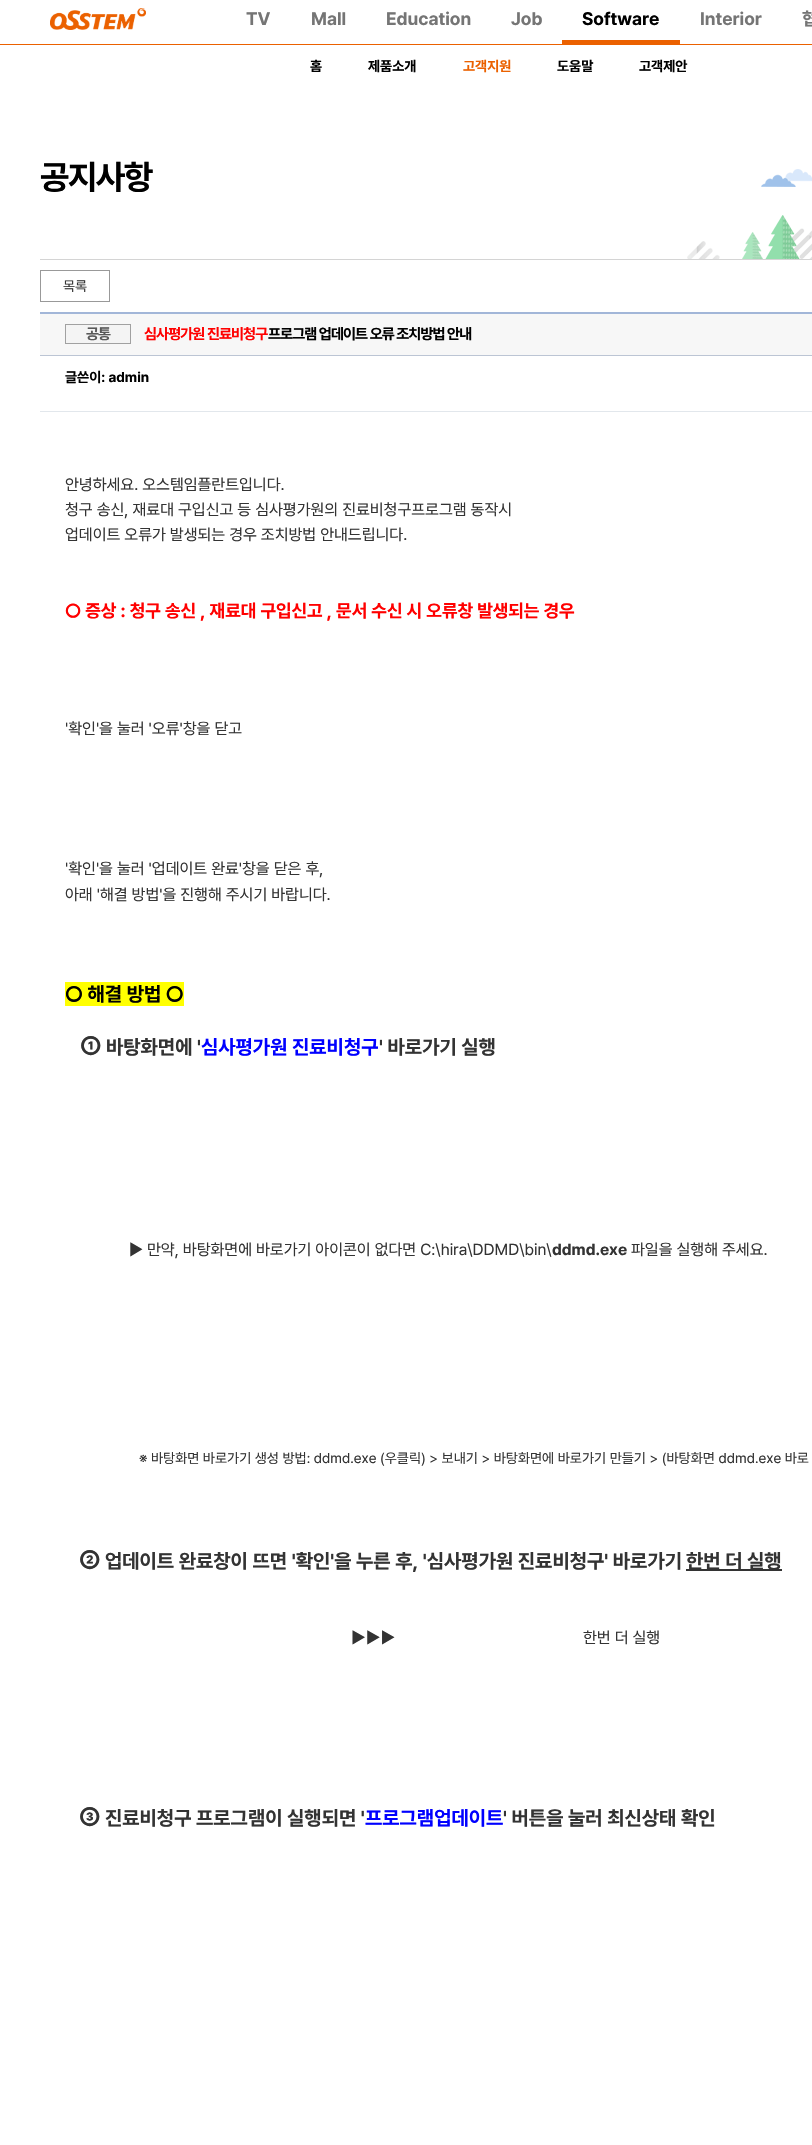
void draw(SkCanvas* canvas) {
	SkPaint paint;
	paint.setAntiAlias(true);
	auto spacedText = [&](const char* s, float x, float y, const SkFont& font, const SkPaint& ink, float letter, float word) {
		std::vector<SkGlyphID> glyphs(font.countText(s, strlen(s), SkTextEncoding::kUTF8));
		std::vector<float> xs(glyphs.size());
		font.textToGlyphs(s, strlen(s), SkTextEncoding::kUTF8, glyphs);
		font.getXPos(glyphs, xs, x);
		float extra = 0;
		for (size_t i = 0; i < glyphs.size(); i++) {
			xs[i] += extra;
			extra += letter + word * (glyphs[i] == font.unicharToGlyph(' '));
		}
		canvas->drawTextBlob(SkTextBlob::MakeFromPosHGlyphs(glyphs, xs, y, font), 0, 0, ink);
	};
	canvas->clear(0xffffffff);
	canvas->drawImageRect(SkImages::DeferredFromEncodedData(SkData::MakeFromFileName("img1.png")), SkRect::MakeXYWH(50, 8, 96, 22), SkSamplingOptions());
	SkFont f1(fontMgr->matchFamilyStyle("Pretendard", SkFontStyle::Bold()), 18);
	f1.setSubpixel(true);
	paint.setColor(0xff757575);
	canvas->drawString("TV", 246, 25, f1, paint);
	canvas->drawString("Mall", 311, 25, f1, paint);
	canvas->drawString("Education", 386, 25, f1, paint);
	canvas->drawString("Job", 511, 25, f1, paint);
	paint.setColor(0xff000000);
	canvas->drawString("Software", 582, 25, f1, paint);
	paint.setColor(0xffeb6100);
	canvas->drawRect(SkRect::MakeXYWH(562, 40, 118, 4), paint);
	paint.setColor(0xff757575);
	canvas->drawString("Interior", 700, 25, f1, paint);
	canvas->drawString("협", 802, 25, f1, paint);
	paint.setColor(0xffeb6100);
	canvas->drawRect(SkRect::MakeXYWH(0, 44, 812, 1), paint);
	SkFont f2(fontMgr->matchFamilyStyle("Pretendard", SkFontStyle::Bold()), 14);
	f2.setSubpixel(true);
	paint.setColor(0xff000000);
	canvas->drawString("홈", 310, 71, f2, paint);
	canvas->drawString("제품소개", 368, 71, f2, paint);
	paint.setColor(0xffeb6100);
	canvas->drawString("고객지원", 463, 71, f2, paint);
	paint.setColor(0xff000000);
	canvas->drawString("도움말", 557, 71, f2, paint);
	canvas->drawString("고객제안", 639, 71, f2, paint);
	canvas->drawImageRect(SkImages::DeferredFromEncodedData(SkData::MakeFromFileName("img2.png")), SkRect::MakeXYWH(687, 169, 125, 90), SkSamplingOptions());
	paint.setColor(0xffd4d4d4);
	canvas->drawRect(SkRect::MakeXYWH(40, 259, 772, 1), paint);
	SkFont f3(fontMgr->matchFamilyStyle("Pretendard", SkFontStyle::Bold()), 34);
	f3.setSubpixel(true);
	paint.setColor(0xff000000);
	spacedText("공지사항", 40, 189, f3, paint, -1.5, 0);
	paint.setStroke(true);
	paint.setStrokeWidth(1);
	paint.setColor(0xff999999);
	canvas->drawRect(SkRect::MakeXYWH(40.5, 270.5, 69, 31), paint);
	SkFont f4(fontMgr->matchFamilyStyle("Pretendard", SkFontStyle::Normal()), 14);
	f4.setSubpixel(true);
	paint.setStroke(false);
	paint.setColor(0xff333333);
	canvas->drawString("목록", 63, 291, f4, paint);
	paint.setColor(0xffa2b6d8);
	canvas->drawRect(SkRect::MakeXYWH(40, 312, 772, 2), paint);
	paint.setColor(0xfff7f7f7);
	canvas->drawRect(SkRect::MakeXYWH(40, 314, 772, 41), paint);
	paint.setColor(0xffbcc5d4);
	canvas->drawRect(SkRect::MakeXYWH(40, 355, 772, 1), paint);
	paint.setColor(0xfff4f4f4);
	canvas->drawRect(SkRect::MakeXYWH(65.5, 324.5, 65, 19), paint);
	paint.setStroke(true);
	paint.setColor(0xffa1a1a1);
	canvas->drawRect(SkRect::MakeXYWH(65.5, 324.5, 65, 19), paint);
	SkFont f5(fontMgr->matchFamilyStyle("Pretendard", SkFontStyle::Bold()), 15);
	f5.setSubpixel(true);
	paint.setStroke(false);
	paint.setColor(0xff595959);
	spacedText("공통", 86, 339, f5, paint, -0.9, 0);
	paint.setColor(0xffff0000);
	spacedText("심사평가원 진료비청구", 144, 339, f5, paint, -0.9, 0);
	paint.setColor(0xff000000);
	spacedText("프로그램 업데이트 오류 조치방법 안내", 268, 339, f5, paint, -0.9, 0);
	paint.setColor(0xffe2e7ec);
	canvas->drawRect(SkRect::MakeXYWH(40, 411, 772, 1), paint);
	paint.setColor(0xff000000);
	canvas->drawString("글쓴이: admin", 65, 382, f2, paint);
	SkFont f6(fontMgr->matchFamilyStyle("Pretendard", SkFontStyle::Normal()), 16);
	f6.setSubpixel(true);
	paint.setColor(0xff333333);
	canvas->drawString("안녕하세요. 오스템임플란트입니다.", 65, 490, f6, paint);
	canvas->drawString("청구 송신, 재료대 구입신고 등 심사평가원의 진료비청구프로그램 동작시", 65, 515, f6, paint);
	canvas->drawString("업데이트 오류가 발생되는 경우 조치방법 안내드립니다.", 65, 540, f6, paint);
	paint.setColor(0xffff0000);
	canvas->drawString("○ 증상 : 청구 송신 , 재료대 구입신고 , 문서 수신 시 오류창 발생되는 경우", 65, 617, f1, paint);
	paint.setColor(0xff333333);
	canvas->drawString("'확인'을 눌러 '오류'창을 닫고", 65, 734, f6, paint);
	canvas->drawString("'확인'을 눌러 '업데이트 완료'창을 닫은 후,", 65, 874, f6, paint);
	canvas->drawString("아래 '해결 방법'을 진행해 주시기 바랍니다.", 65, 900, f6, paint);
	paint.setColor(0xffffff00);
	canvas->drawRect(SkRect::MakeXYWH(65, 982, 119, 24), paint);
	SkFont f7(fontMgr->matchFamilyStyle("Pretendard", SkFontStyle::Bold()), 20);
	f7.setSubpixel(true);
	paint.setColor(0xff000000);
	canvas->drawString("○ 해결 방법 ○", 65, 1001, f7, paint);
	SkFont f8(fontMgr->matchFamilyStyle("Pretendard", SkFontStyle::Bold()), 24);
	f8.setSubpixel(true);
	paint.setColor(0xff333333);
	canvas->drawString("①", 80, 1054, f8, paint);
	canvas->drawString("바탕화면에 '", 106, 1054, f7, paint);
	paint.setColor(0xff0000ff);
	canvas->drawString("심사평가원 진료비청구", 201, 1054, f7, paint);
	paint.setColor(0xff333333);
	canvas->drawString("' 바로가기 실행", 379, 1054, f7, paint);
	canvas->drawString("▶ 만약, 바탕화면에 바로가기 아이콘이 없다면 C:\\hira\\DDMD\\bin\\", 129, 1255, f6, paint);
	SkFont f9(fontMgr->matchFamilyStyle("Pretendard", SkFontStyle::Bold()), 16);
	f9.setSubpixel(true);
	canvas->drawString("ddmd.exe", 552, 1255, f9, paint);
	canvas->drawString("파일을 실행해 주세요.", 631, 1255, f6, paint);
	canvas->drawString("※ 바탕화면 바로가기 생성 방법: ddmd.exe (우클릭) > 보내기 > 바탕화면에 바로가기 만들기 > (바탕화면 ddmd.exe 바로", 139, 1463, f4, paint);
	canvas->drawString("②", 79, 1568, f8, paint);
	canvas->drawString("업데이트 완료창이 뜨면 '확인'을 누른 후, '심사평가원 진료비청구' 바로가기", 105, 1568, f7, paint);
	canvas->drawRect(SkRect::MakeXYWH(686, 1569, 96, 2), paint);
	canvas->drawString("한번 더 실행", 686, 1568, f7, paint);
	canvas->drawString("▶▶▶", 351, 1643, f9, paint);
	canvas->drawString("한번 더 실행", 583, 1643, f6, paint);
	canvas->drawString("③", 79, 1825, f8, paint);
	canvas->drawString("진료비청구 프로그램이 실행되면 '", 105, 1825, f7, paint);
	paint.setColor(0xff0000ff);
	canvas->drawString("프로그램업데이트", 365, 1825, f7, paint);
	paint.setColor(0xff333333);
	canvas->drawString("' 버튼을 눌러 최신상태 확인", 503, 1825, f7, paint);
}
